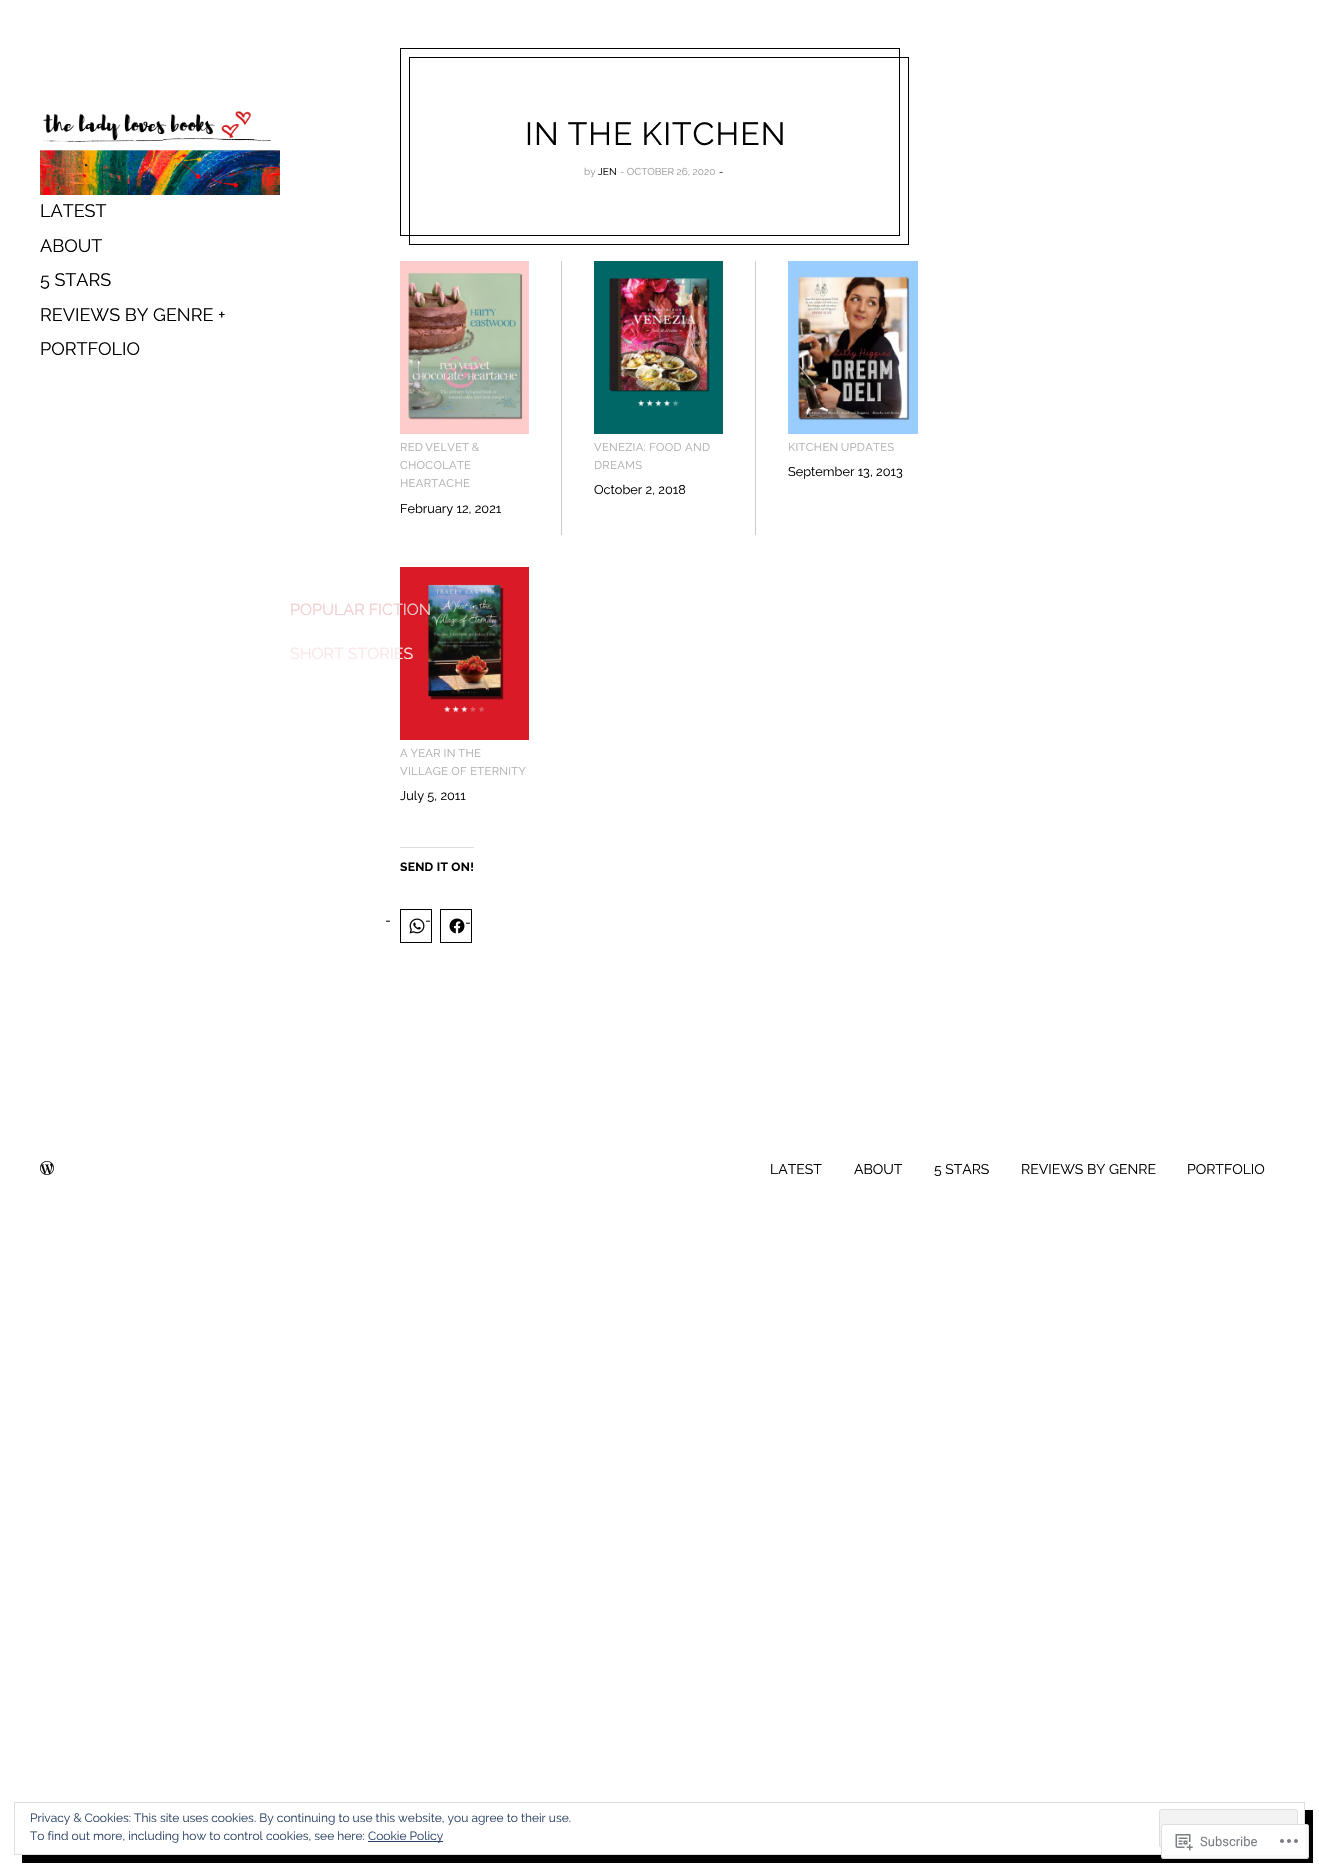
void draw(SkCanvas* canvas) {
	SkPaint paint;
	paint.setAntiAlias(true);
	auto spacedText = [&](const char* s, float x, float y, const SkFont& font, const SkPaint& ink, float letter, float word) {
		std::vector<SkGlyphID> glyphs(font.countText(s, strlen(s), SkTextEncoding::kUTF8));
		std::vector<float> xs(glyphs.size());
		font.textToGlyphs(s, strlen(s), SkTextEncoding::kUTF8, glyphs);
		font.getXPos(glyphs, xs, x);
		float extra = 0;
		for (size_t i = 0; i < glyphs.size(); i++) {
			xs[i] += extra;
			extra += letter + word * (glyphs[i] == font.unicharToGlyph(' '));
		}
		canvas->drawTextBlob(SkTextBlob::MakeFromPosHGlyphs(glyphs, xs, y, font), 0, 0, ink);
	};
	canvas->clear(0xffffffff);
	canvas->drawImageRect(SkImages::DeferredFromEncodedData(SkData::MakeFromFileName("img1.png")), SkRect::MakeXYWH(40, 111, 240, 84), SkSamplingOptions());
	SkFont f1(fontMgr->matchFamilyStyle("Raleway", SkFontStyle::Normal()), 18);
	f1.setSubpixel(true);
	paint.setColor(0xff000000);
	canvas->drawString("LATEST", 40, 217, f1, paint);
	canvas->drawString("ABOUT", 40, 252, f1, paint);
	canvas->drawString("5 STARS", 40, 286, f1, paint);
	canvas->drawString("REVIEWS BY GENRE", 40, 321, f1, paint);
	canvas->drawString("+", 218, 321, f1, paint);
	canvas->drawImageRect(SkImages::DeferredFromEncodedData(SkData::MakeFromFileName("img5.png")), SkRect::MakeXYWH(400, 567, 129, 173), SkSamplingOptions());
	SkFont f2(fontMgr->matchFamilyStyle("Raleway", SkFontStyle::Normal()), 16);
	f2.setSubpixel(true);
	paint.setColor(0xfff2cdcf);
	canvas->drawString("POPULAR FICTION", 290, 615, f2, paint);
	paint.setColor(0xfffbe6e7);
	canvas->drawString("SHORT STORIES", 290, 659, f2, paint);
	paint.setColor(0xff000000);
	canvas->drawString("PORTFOLIO", 40, 355, f1, paint);
	paint.setStroke(true);
	paint.setStrokeWidth(1);
	canvas->drawRect(SkRect::MakeXYWH(400.5, 48.5, 499, 187), paint);
	canvas->drawRect(SkRect::MakeXYWH(409.5, 57.5, 499, 187), paint);
	SkFont f3(fontMgr->matchFamilyStyle("Raleway", SkFontStyle::Normal()), 32);
	f3.setSubpixel(true);
	paint.setStroke(false);
	spacedText("IN THE KITCHEN", 525, 145, f3, paint, 1, -1);
	SkFont f4(fontMgr->matchFamilyStyle("Raleway", SkFontStyle::Normal()), 10);
	f4.setSubpixel(true);
	paint.setColor(0xff9a9a98);
	canvas->drawString("by", 584, 175, f4, paint);
	paint.setColor(0xff000000);
	canvas->drawString("JEN", 598, 175, f4, paint);
	paint.setColor(0xff9a9a98);
	canvas->drawString("- OCTOBER 26, 2020", 620, 175, f4, paint);
	paint.setColor(0xff000000);
	canvas->drawString("-", 719, 175, f4, paint);
	paint.setColor(0xffcccccc);
	canvas->drawRect(SkRect::MakeXYWH(561, 261, 1, 274), paint);
	canvas->drawImageRect(SkImages::DeferredFromEncodedData(SkData::MakeFromFileName("img2.png")), SkRect::MakeXYWH(400, 261, 129, 173), SkSamplingOptions());
	SkFont f5(fontMgr->matchFamilyStyle("Raleway", SkFontStyle::Normal()), 11.25);
	f5.setSubpixel(true);
	paint.setColor(0xffafafaf);
	spacedText("RED VELVET &", 400, 451, f5, paint, 0.3, -1);
	spacedText("CHOCOLATE", 400, 469, f5, paint, 0.3, 0);
	spacedText("HEARTACHE", 400, 487, f5, paint, 0.3, 0);
	SkFont f6(fontMgr->matchFamilyStyle("Raleway", SkFontStyle::Normal()), 12.75);
	f6.setSubpixel(true);
	paint.setColor(0xff000000);
	canvas->drawString("February 12, 2021", 400, 513, f6, paint);
	paint.setColor(0xffcccccc);
	canvas->drawRect(SkRect::MakeXYWH(755, 261, 1, 274), paint);
	canvas->drawImageRect(SkImages::DeferredFromEncodedData(SkData::MakeFromFileName("img3.png")), SkRect::MakeXYWH(594, 261, 129, 173), SkSamplingOptions());
	paint.setColor(0xffafafaf);
	spacedText("VENEZIA: FOOD AND", 594, 451, f5, paint, 0.3, 0);
	spacedText("DREAMS", 594, 469, f5, paint, 0.3, 0);
	paint.setColor(0xff000000);
	canvas->drawString("October 2, 2018", 594, 494, f6, paint);
	canvas->drawImageRect(SkImages::DeferredFromEncodedData(SkData::MakeFromFileName("img4.png")), SkRect::MakeXYWH(788, 261, 130, 173), SkSamplingOptions());
	paint.setColor(0xffafafaf);
	spacedText("KITCHEN UPDATES", 788, 451, f5, paint, 0.3, -1);
	paint.setColor(0xff000000);
	canvas->drawString("September 13, 2013", 788, 476, f6, paint);
	paint.setColor(0xffafafaf);
	spacedText("A YEAR IN THE", 400, 757, f5, paint, 0.3, -0.5);
	spacedText("VILLAGE OF ETERNITY", 400, 775, f5, paint, 0.3, 0);
	paint.setColor(0xff000000);
	canvas->drawString("July 5, 2011", 400, 800, f6, paint);
	paint.setColor(0xffdcdcde);
	canvas->drawRect(SkRect::MakeXYWH(400, 847, 74, 1), paint);
	SkFont f7(fontMgr->matchFamilyStyle("Raleway", SkFontStyle::Bold()), 12);
	f7.setSubpixel(true);
	paint.setColor(0xff000000);
	spacedText("SEND IT ON!", 400, 871, f7, paint, 0.3, 0);
	SkFont f8(fontMgr->matchFamilyStyle("Raleway", SkFontStyle::Normal()), 14);
	f8.setSubpixel(true);
	canvas->drawString("-", 385, 925, f8, paint);
	paint.setStroke(true);
	canvas->drawRect(SkRect::MakeXYWH(400.5, 909.5, 31, 33), paint);
	canvas->drawImageRect(SkImages::DeferredFromEncodedData(SkData::MakeFromFileName("img6.png")), SkRect::MakeXYWH(409, 918, 16, 16), SkSamplingOptions());
	paint.setStroke(false);
	canvas->drawString("-", 425, 925, f8, paint);
	paint.setStroke(true);
	canvas->drawRect(SkRect::MakeXYWH(440.5, 909.5, 31, 33), paint);
	canvas->drawImageRect(SkImages::DeferredFromEncodedData(SkData::MakeFromFileName("img7.png")), SkRect::MakeXYWH(449, 918, 16, 16), SkSamplingOptions());
	paint.setStroke(false);
	canvas->drawString("-", 465, 927, f8, paint);
	canvas->drawImageRect(SkImages::DeferredFromEncodedData(SkData::MakeFromFileName("img8.png")), SkRect::MakeXYWH(40, 1161, 14, 14), SkSamplingOptions());
	canvas->drawString("LATEST", 770, 1174, f8, paint);
	canvas->drawString("ABOUT", 854, 1174, f8, paint);
	canvas->drawString("5 STARS", 934, 1174, f8, paint);
	canvas->drawString("REVIEWS BY GENRE", 1021, 1174, f8, paint);
	canvas->drawString("PORTFOLIO", 1187, 1174, f8, paint);
	canvas->drawRect(SkRect::MakeXYWH(22, 1810, 1291, 53), paint);
	paint.setColor(0xffffffff);
	canvas->drawRect(SkRect::MakeXYWH(22, 1810, 1282, 44), paint);
	paint.setStroke(true);
	paint.setColor(0xffdedede);
	canvas->drawRect(SkRect::MakeXYWH(14.5, 1802.5, 1290, 52), paint);
	SkFont f9(fontMgr->matchFamilyStyle("Raleway", SkFontStyle::Normal()), 12);
	f9.setSubpixel(true);
	paint.setStroke(false);
	paint.setColor(0xff2e4467);
	canvas->drawString("Privacy & Cookies: This site uses cookies. By continuing to use this website, you agree to their use.", 30, 1822, f9, paint);
	paint.setColor(0xfff3f3f3);
	canvas->drawRoundRect(SkRect::MakeXYWH(1159.5, 1809.5, 138, 38), 2.5, 2.5, paint);
	paint.setStroke(true);
	paint.setColor(0xffdedede);
	canvas->drawRoundRect(SkRect::MakeXYWH(1159.5, 1809.5, 138, 38), 2.5, 2.5, paint);
	paint.setStroke(false);
	paint.setColor(0xff2e4467);
	canvas->drawString("To find out more, including how to control cookies, see here:", 30, 1840, f9, paint);
	canvas->drawRect(SkRect::MakeXYWH(368, 1841, 75, 1), paint);
	canvas->drawString("Cookie Policy", 368, 1840, f9, paint);
	paint.setColor(0xfaffffff);
	canvas->drawRoundRect(SkRect::MakeXYWH(1161, 1824, 148, 35), 3, 3, paint);
	paint.setStroke(true);
	paint.setColor(0xfadcdcde);
	canvas->drawRoundRect(SkRect::MakeXYWH(1161.5, 1824.5, 147, 34), 2.5, 2.5, paint);
	canvas->drawImageRect(SkImages::DeferredFromEncodedData(SkData::MakeFromFileName("img9.png")), SkRect::MakeXYWH(1175, 1834, 18, 17), SkSamplingOptions());
	SkFont f10(fontMgr->matchFamilyStyle("Roboto", SkFontStyle::Normal()), 13);
	f10.setSubpixel(true);
	paint.setStroke(false);
	paint.setColor(0xff7a7e84);
	canvas->drawString("Subscribe", 1200, 1846, f10, paint);
	canvas->drawImageRect(SkImages::DeferredFromEncodedData(SkData::MakeFromFileName("img10.png")), SkRect::MakeXYWH(1280, 1839, 18, 4), SkSamplingOptions());
}
